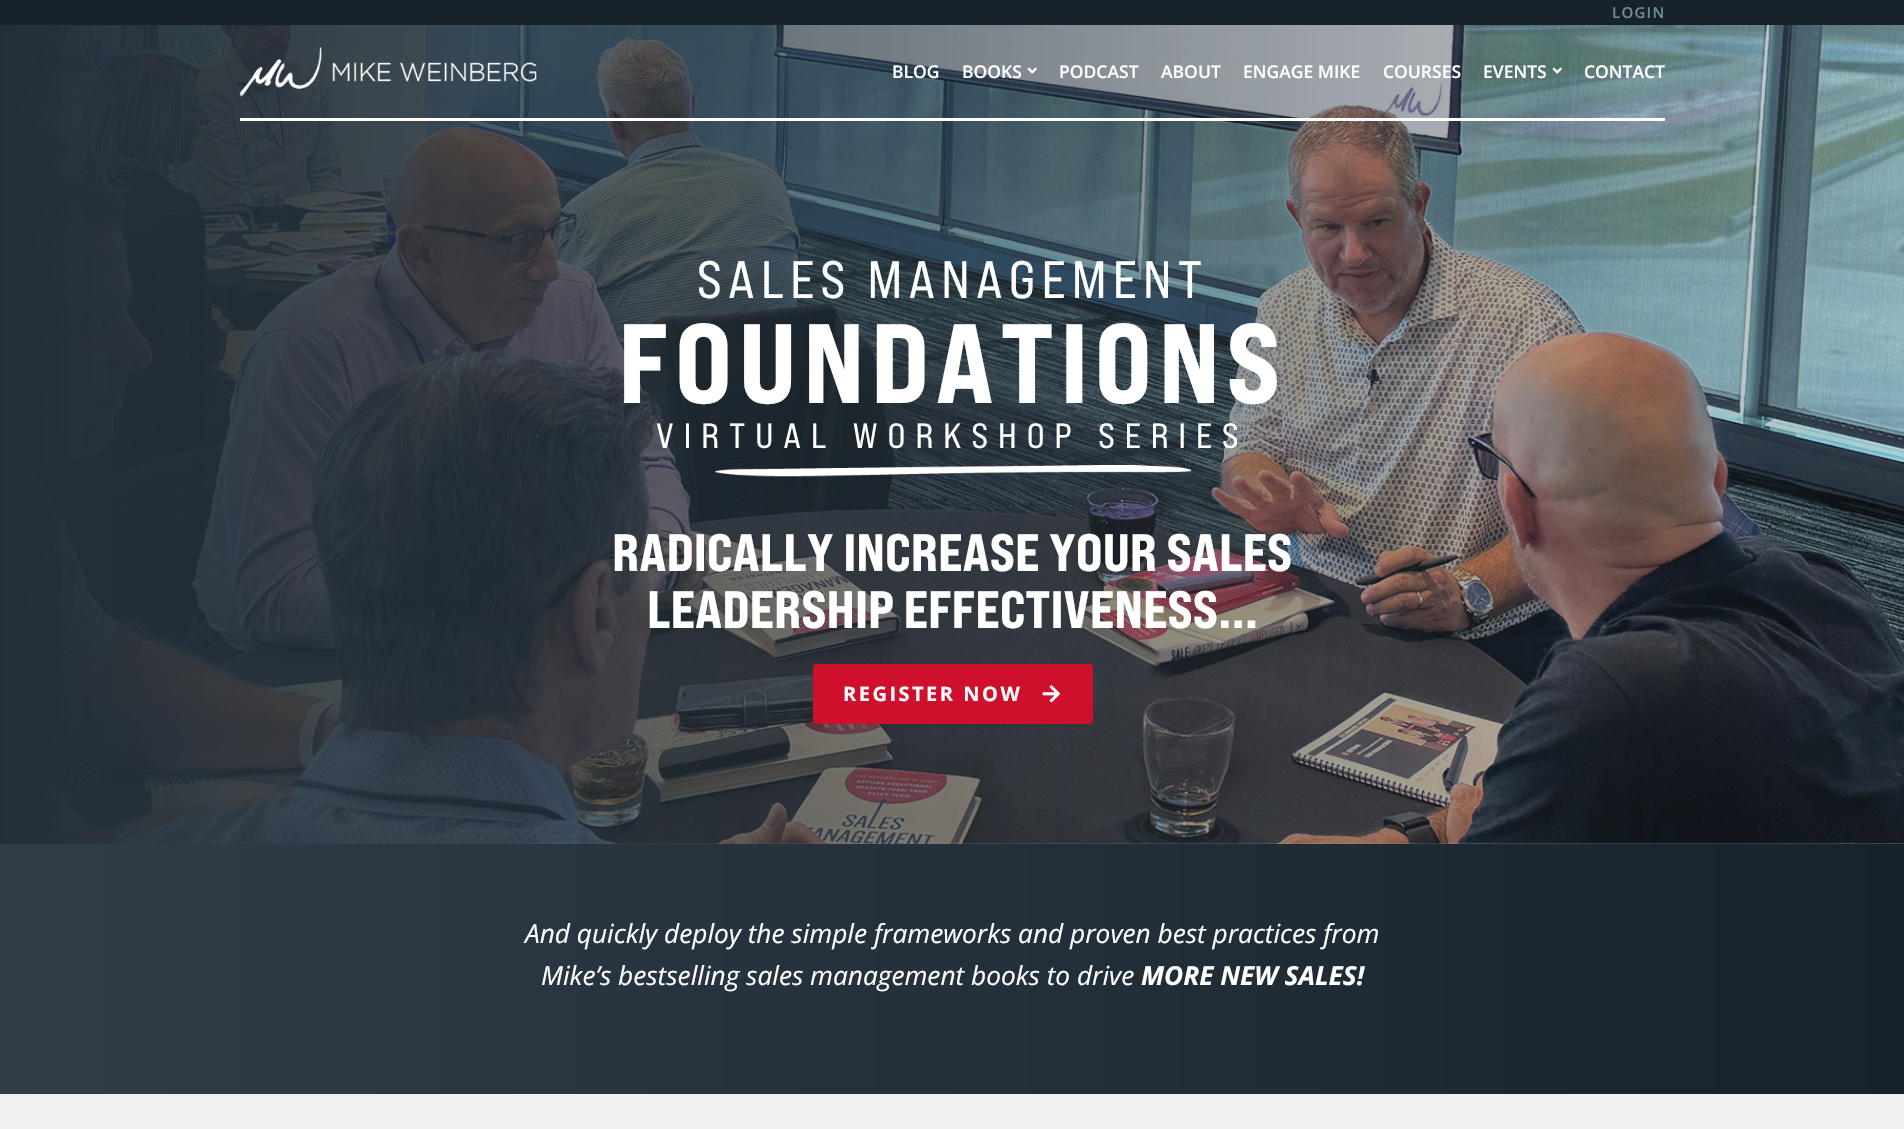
void draw(SkCanvas* canvas) {
	SkPaint paint;
	paint.setAntiAlias(true);
	auto spacedText = [&](const char* s, float x, float y, const SkFont& font, const SkPaint& ink, float letter, float word) {
		std::vector<SkGlyphID> glyphs(font.countText(s, strlen(s), SkTextEncoding::kUTF8));
		std::vector<float> xs(glyphs.size());
		font.textToGlyphs(s, strlen(s), SkTextEncoding::kUTF8, glyphs);
		font.getXPos(glyphs, xs, x);
		float extra = 0;
		for (size_t i = 0; i < glyphs.size(); i++) {
			xs[i] += extra;
			extra += letter + word * (glyphs[i] == font.unicharToGlyph(' '));
		}
		canvas->drawTextBlob(SkTextBlob::MakeFromPosHGlyphs(glyphs, xs, y, font), 0, 0, ink);
	};
	canvas->clear(0xfff1f1f1);
	paint.setColor(0xff17222b);
	canvas->drawRect(SkRect::MakeXYWH(0, 0, 1904, 25), paint);
	SkFont f1(fontMgr->matchFamilyStyle("Open Sans", SkFontStyle(600, SkFontStyle::kNormal_Width, SkFontStyle::kUpright_Slant)), 15);
	f1.setSubpixel(true);
	paint.setColor(0xff6e8d9d);
	spacedText("LOGIN", 1612, 18, f1, paint, 1.25, 0);
	canvas->drawImageRect(SkImages::DeferredFromEncodedData(SkData::MakeFromFileName("img1.png")), SkRect::MakeXYWH(15, 25, 1889, 819), SkSamplingOptions());
	{
		const SkColor colors[] = {0xff222e38, 0x3b303e4a};
		const float stops[] = {0, 1};
		const SkPoint ends[] = {{0, 434}, {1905, 434}};
		paint.setShader(SkGradientShader::MakeLinear(ends, colors, stops, 2, SkTileMode::kClamp));
		paint.setAlpha(255);
	}
	canvas->drawRect(SkRect::MakeXYWH(0, 25, 1904, 819), paint);
	paint.setShader(nullptr);
	paint.setColor(0xffffffff);
	canvas->drawRect(SkRect::MakeXYWH(240, 118, 1425, 3), paint);
	canvas->drawImageRect(SkImages::DeferredFromEncodedData(SkData::MakeFromFileName("img2.png")), SkRect::MakeXYWH(240, 47, 297, 50), SkSamplingOptions());
	SkFont f2(fontMgr->matchFamilyStyle("Open Sans", SkFontStyle(600, SkFontStyle::kNormal_Width, SkFontStyle::kUpright_Slant)), 17.5);
	f2.setSubpixel(true);
	canvas->drawString("BLOG", 892, 78, f2, paint);
	canvas->drawString("BOOKS", 962, 78, f2, paint);
	canvas->drawImageRect(SkImages::DeferredFromEncodedData(SkData::MakeFromFileName("img3.png")), SkRect::MakeXYWH(1027, 67, 10, 7), SkSamplingOptions());
	canvas->drawString("PODCAST", 1059, 78, f2, paint);
	canvas->drawString("ABOUT", 1161, 78, f2, paint);
	canvas->drawString("ENGAGE MIKE", 1243, 78, f2, paint);
	canvas->drawString("COURSES", 1383, 78, f2, paint);
	canvas->drawString("EVENTS", 1483, 78, f2, paint);
	canvas->drawImageRect(SkImages::DeferredFromEncodedData(SkData::MakeFromFileName("img4.png")), SkRect::MakeXYWH(1552, 67, 10, 7), SkSamplingOptions());
	canvas->drawString("CONTACT", 1584, 78, f2, paint);
	SkFont f3(fontMgr->matchFamilyStyle("Bebas Neue", SkFontStyle::Normal()), 52.5);
	f3.setSubpixel(true);
	spacedText("SALES MANAGEMENT", 697, 298, f3, paint, 6.25, 0);
	SkFont f4(fontMgr->matchFamilyStyle("Bebas Neue", SkFontStyle(800, SkFontStyle::kNormal_Width, SkFontStyle::kUpright_Slant)), 112.5);
	f4.setSubpixel(true);
	spacedText("FOUNDATIONS", 618, 403, f4, paint, 6.25, 0);
	SkFont f5(fontMgr->matchFamilyStyle("Bebas Neue", SkFontStyle::Normal()), 35);
	f5.setSubpixel(true);
	spacedText("VIRTUAL WORKSHOP SERIES", 656, 448, f5, paint, 10, 0);
	canvas->drawImageRect(SkImages::DeferredFromEncodedData(SkData::MakeFromFileName("img5.png")), SkRect::MakeXYWH(715, 465, 477, 12), SkSamplingOptions());
	SkFont f6(fontMgr->matchFamilyStyle("Bebas Neue", SkFontStyle(800, SkFontStyle::kNormal_Width, SkFontStyle::kUpright_Slant)), 52.5);
	f6.setSubpixel(true);
	canvas->drawString("RADICALLY INCREASE YOUR SALES", 612, 571, f6, paint);
	canvas->drawString("LEADERSHIP EFFECTIVENESS...", 647, 628, f6, paint);
	paint.setColor(0xffcf102d);
	canvas->drawRoundRect(SkRect::MakeXYWH(813, 664, 280, 60), 4, 4, paint);
	SkFont f7(fontMgr->matchFamilyStyle("Open Sans", SkFontStyle::Bold()), 20);
	f7.setSubpixel(true);
	paint.setColor(0xffffffff);
	spacedText("REGISTER NOW", 843, 701, f7, paint, 2.5, 0);
	canvas->drawImageRect(SkImages::DeferredFromEncodedData(SkData::MakeFromFileName("img6.png")), SkRect::MakeXYWH(1042, 685, 18, 18), SkSamplingOptions());
	{
		const SkColor colors[] = {0xff303e4a, 0xff17222b};
		const float stops[] = {0, 1};
		const SkPoint ends[] = {{0, 969}, {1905, 969}};
		paint.setShader(SkGradientShader::MakeLinear(ends, colors, stops, 2, SkTileMode::kClamp));
		paint.setAlpha(255);
	}
	canvas->drawRect(SkRect::MakeXYWH(0, 844, 1904, 250), paint);
	SkFont f8(fontMgr->matchFamilyStyle("Open Sans", SkFontStyle::Italic()), 26.25);
	f8.setSubpixel(true);
	paint.setShader(nullptr);
	paint.setColor(0xffffffff);
	canvas->drawString("And quickly deploy the simple frameworks and proven best practices from", 525, 943, f8, paint);
	canvas->drawString("Mike’s bestselling sales management books to drive", 541, 985, f8, paint);
	SkFont f9(fontMgr->matchFamilyStyle("Open Sans", SkFontStyle::BoldItalic()), 26.25);
	f9.setSubpixel(true);
	canvas->drawString("MORE NEW SALES!", 1141, 985, f9, paint);
}
